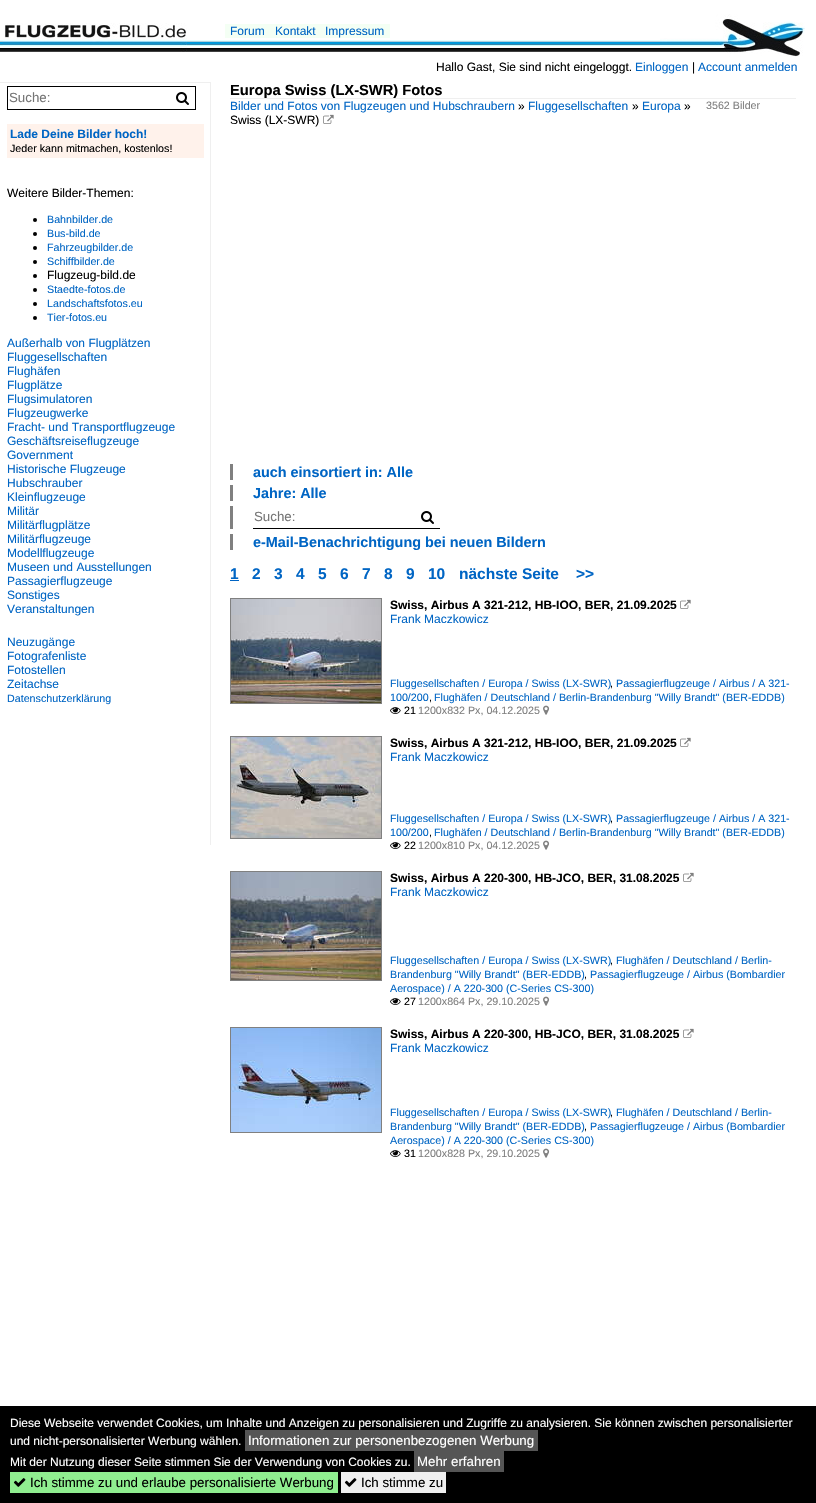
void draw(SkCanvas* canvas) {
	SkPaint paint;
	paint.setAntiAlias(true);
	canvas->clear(0xffffffff);
	canvas->drawImageRect(SkImages::DeferredFromEncodedData(SkData::MakeFromFileName("img3.png")), SkRect::MakeXYWH(0, 40, 660, 12), SkSamplingOptions());
	canvas->drawImageRect(SkImages::DeferredFromEncodedData(SkData::MakeFromFileName("img1.png")), SkRect::MakeXYWH(3, 23, 184, 29), SkSamplingOptions());
	paint.setColor(0xfff4fff4);
	canvas->drawRect(SkRect::MakeXYWH(225, 24, 165, 14), paint);
	SkFont f1(fontMgr->matchFamilyStyle("Liberation Sans", SkFontStyle::Normal()), 12);
	f1.setSubpixel(true);
	paint.setColor(0xff0065c4);
	canvas->drawString("Forum", 230, 35, f1, paint);
	canvas->drawString("Kontakt", 275, 35, f1, paint);
	canvas->drawString("Impressum", 325, 35, f1, paint);
	canvas->drawImageRect(SkImages::DeferredFromEncodedData(SkData::MakeFromFileName("img2.png")), SkRect::MakeXYWH(660, 14, 145, 43), SkSamplingOptions());
	paint.setColor(0xff000000);
	canvas->drawString("Hallo Gast, Sie sind nicht eingeloggt.", 436, 71, f1, paint);
	paint.setColor(0xff0065c4);
	canvas->drawString("Einloggen", 635, 71, f1, paint);
	paint.setColor(0xff000000);
	canvas->drawString("|", 692, 71, f1, paint);
	paint.setColor(0xff0065c4);
	canvas->drawString("Account anmelden", 698, 71, f1, paint);
	paint.setColor(0xffefefef);
	canvas->drawRect(SkRect::MakeXYWH(0, 82, 211, 1), paint);
	canvas->drawRect(SkRect::MakeXYWH(210, 82, 1, 763), paint);
	paint.setColor(0xff000000);
	canvas->drawRect(SkRect::MakeXYWH(7, 86, 189, 1), paint);
	canvas->drawRect(SkRect::MakeXYWH(7, 109, 163, 1), paint);
	canvas->drawRect(SkRect::MakeXYWH(7, 86, 1, 24), paint);
	SkFont f2(fontMgr->matchFamilyStyle("Liberation Sans", SkFontStyle::Normal()), 13.3);
	f2.setSubpixel(true);
	paint.setColor(0xff757575);
	canvas->drawString("Suche:", 9, 102, f2, paint);
	paint.setColor(0xff000000);
	canvas->drawRect(SkRect::MakeXYWH(195, 86, 1, 24), paint);
	canvas->drawRect(SkRect::MakeXYWH(170, 109, 26, 1), paint);
	canvas->drawImageRect(SkImages::DeferredFromEncodedData(SkData::MakeFromFileName("img4.png")), SkRect::MakeXYWH(176, 92, 13, 13), SkSamplingOptions());
	paint.setColor(0xfffff2eb);
	canvas->drawRect(SkRect::MakeXYWH(7, 124, 197, 34), paint);
	SkFont f3(fontMgr->matchFamilyStyle("Liberation Sans", SkFontStyle::Bold()), 12);
	f3.setSubpixel(true);
	paint.setColor(0xff0065c4);
	canvas->drawString("Lade Deine Bilder hoch!", 10, 138, f3, paint);
	SkFont f4(fontMgr->matchFamilyStyle("Liberation Sans", SkFontStyle::Normal()), 10.7);
	f4.setSubpixel(true);
	paint.setColor(0xff000000);
	canvas->drawString("Jeder kann mitmachen, kostenlos!", 10, 152, f4, paint);
	canvas->drawString("Weitere Bilder-Themen:", 7, 197, f1, paint);
	canvas->drawCircle(35, 220, 2, paint);
	paint.setColor(0xff0065c4);
	canvas->drawString("Bahnbilder.de", 47, 223, f4, paint);
	paint.setColor(0xff000000);
	canvas->drawCircle(35, 234, 2, paint);
	paint.setColor(0xff0065c4);
	canvas->drawString("Bus-bild.de", 47, 237, f4, paint);
	paint.setColor(0xff000000);
	canvas->drawCircle(35, 248, 2, paint);
	paint.setColor(0xff0065c4);
	canvas->drawString("Fahrzeugbilder.de", 47, 251, f4, paint);
	paint.setColor(0xff000000);
	canvas->drawCircle(35, 262, 2, paint);
	paint.setColor(0xff0065c4);
	canvas->drawString("Schiffbilder.de", 47, 265, f4, paint);
	paint.setColor(0xff000000);
	canvas->drawCircle(35, 276, 2, paint);
	canvas->drawString("Flugzeug-bild.de", 47, 279, f1, paint);
	canvas->drawCircle(35, 290, 2, paint);
	paint.setColor(0xff0065c4);
	canvas->drawString("Staedte-fotos.de", 47, 293, f4, paint);
	paint.setColor(0xff000000);
	canvas->drawCircle(35, 304, 2, paint);
	paint.setColor(0xff0065c4);
	canvas->drawString("Landschaftsfotos.eu", 47, 307, f4, paint);
	paint.setColor(0xff000000);
	canvas->drawCircle(35, 318, 2, paint);
	paint.setColor(0xff0065c4);
	canvas->drawString("Tier-fotos.eu", 47, 321, f4, paint);
	canvas->drawString("Außerhalb von Flugplätzen", 7, 347, f1, paint);
	canvas->drawString("Fluggesellschaften", 7, 361, f1, paint);
	canvas->drawString("Flughäfen", 7, 375, f1, paint);
	canvas->drawString("Flugplätze", 7, 389, f1, paint);
	canvas->drawString("Flugsimulatoren", 7, 403, f1, paint);
	canvas->drawString("Flugzeugwerke", 7, 417, f1, paint);
	canvas->drawString("Fracht- und Transportflugzeuge", 7, 431, f1, paint);
	canvas->drawString("Geschäftsreiseflugzeuge", 7, 445, f1, paint);
	canvas->drawString("Government", 7, 459, f1, paint);
	canvas->drawString("Historische Flugzeuge", 7, 473, f1, paint);
	canvas->drawString("Hubschrauber", 7, 487, f1, paint);
	canvas->drawString("Kleinflugzeuge", 7, 501, f1, paint);
	canvas->drawString("Militär", 7, 515, f1, paint);
	canvas->drawString("Militärflugplätze", 7, 529, f1, paint);
	canvas->drawString("Militärflugzeuge", 7, 543, f1, paint);
	canvas->drawString("Modellflugzeuge", 7, 557, f1, paint);
	canvas->drawString("Museen und Ausstellungen", 7, 571, f1, paint);
	canvas->drawString("Passagierflugzeuge", 7, 585, f1, paint);
	canvas->drawString("Sonstiges", 7, 599, f1, paint);
	canvas->drawString("Veranstaltungen", 7, 613, f1, paint);
	canvas->drawString("Neuzugänge", 7, 646, f1, paint);
	canvas->drawString("Fotografenliste", 7, 660, f1, paint);
	canvas->drawString("Fotostellen", 7, 674, f1, paint);
	canvas->drawString("Zeitachse", 7, 688, f1, paint);
	canvas->drawString("Datenschutzerklärung", 7, 702, f4, paint);
	paint.setColor(0xffefefef);
	canvas->drawRect(SkRect::MakeXYWH(230, 98, 566, 1), paint);
	SkFont f5(fontMgr->matchFamilyStyle("Liberation Sans", SkFontStyle::Bold()), 14.7);
	f5.setSubpixel(true);
	paint.setColor(0xff000000);
	canvas->drawString("Europa Swiss (LX-SWR) Fotos", 230, 95, f5, paint);
	paint.setColor(0xff0065c4);
	canvas->drawString("Bilder und Fotos von Flugzeugen und Hubschraubern", 230, 110, f1, paint);
	paint.setColor(0xff000000);
	canvas->drawString("»", 518, 110, f1, paint);
	paint.setColor(0xff0065c4);
	canvas->drawString("Fluggesellschaften", 528, 110, f1, paint);
	paint.setColor(0xff000000);
	canvas->drawString("»", 632, 110, f1, paint);
	paint.setColor(0xff0065c4);
	canvas->drawString("Europa", 642, 110, f1, paint);
	paint.setColor(0xff000000);
	canvas->drawString("»", 684, 110, f1, paint);
	paint.setColor(0xff808080);
	canvas->drawString("3562 Bilder", 706, 109, f4, paint);
	paint.setColor(0xff000000);
	canvas->drawString("Swiss (LX-SWR)", 230, 124, f1, paint);
	canvas->drawImageRect(SkImages::DeferredFromEncodedData(SkData::MakeFromFileName("img5.png")), SkRect::MakeXYWH(323, 114, 11, 10), SkSamplingOptions());
	paint.setColor(0xff808080);
	canvas->drawRect(SkRect::MakeXYWH(230, 464, 3, 16), paint);
	SkFont f6(fontMgr->matchFamilyStyle("Liberation Sans", SkFontStyle::Bold()), 14.4);
	f6.setSubpixel(true);
	paint.setColor(0xff0065c4);
	canvas->drawString("auch einsortiert in: Alle", 253, 477, f6, paint);
	paint.setColor(0xff808080);
	canvas->drawRect(SkRect::MakeXYWH(230, 485, 3, 16), paint);
	paint.setColor(0xff0065c4);
	canvas->drawString("Jahre: Alle", 253, 498, f6, paint);
	paint.setColor(0xff808080);
	canvas->drawRect(SkRect::MakeXYWH(230, 506, 3, 23), paint);
	paint.setColor(0xff000000);
	canvas->drawRect(SkRect::MakeXYWH(253, 528, 187, 1), paint);
	paint.setColor(0xff757575);
	canvas->drawString("Suche:", 254, 521, f2, paint);
	canvas->drawImageRect(SkImages::DeferredFromEncodedData(SkData::MakeFromFileName("img4.png")), SkRect::MakeXYWH(421, 511, 13, 13), SkSamplingOptions());
	paint.setColor(0xff808080);
	canvas->drawRect(SkRect::MakeXYWH(230, 534, 3, 16), paint);
	paint.setColor(0xff0065c4);
	canvas->drawString("e-Mail-Benachrichtigung bei neuen Bildern", 253, 547, f6, paint);
	SkFont f7(fontMgr->matchFamilyStyle("Liberation Sans", SkFontStyle::Bold()), 15.5);
	f7.setSubpixel(true);
	canvas->drawString("1", 230, 579, f7, paint);
	canvas->drawRect(SkRect::MakeXYWH(230, 580, 9, 1), paint);
	canvas->drawString("2", 252, 579, f7, paint);
	canvas->drawString("3", 274, 579, f7, paint);
	canvas->drawString("4", 296, 579, f7, paint);
	canvas->drawString("5", 318, 579, f7, paint);
	canvas->drawString("6", 340, 579, f7, paint);
	canvas->drawString("7", 362, 579, f7, paint);
	canvas->drawString("8", 384, 579, f7, paint);
	canvas->drawString("9", 406, 579, f7, paint);
	canvas->drawString("10", 428, 579, f7, paint);
	canvas->drawString("nächste Seite", 459, 579, f7, paint);
	canvas->drawString(">>", 576, 579, f7, paint);
	paint.setStroke(true);
	paint.setStrokeWidth(1);
	paint.setColor(0xff808080);
	canvas->drawRect(SkRect::MakeXYWH(230.5, 598.5, 151, 105), paint);
	canvas->drawImageRect(SkImages::DeferredFromEncodedData(SkData::MakeFromFileName("img6.png")), SkRect::MakeXYWH(231, 599, 150, 104), SkSamplingOptions());
	paint.setStroke(false);
	paint.setColor(0xff000000);
	canvas->drawString("Swiss, Airbus A 321-212, HB-IOO, BER, 21.09.2025", 390, 609, f3, paint);
	canvas->drawImageRect(SkImages::DeferredFromEncodedData(SkData::MakeFromFileName("img5.png")), SkRect::MakeXYWH(680, 599, 11, 10), SkSamplingOptions());
	paint.setColor(0xff0065c4);
	canvas->drawString("Frank Maczkowicz", 390, 623, f1, paint);
	canvas->drawString("Fluggesellschaften / Europa / Swiss (LX-SWR)", 390, 687, f4, paint);
	paint.setColor(0xff000000);
	canvas->drawString(",", 610, 687, f4, paint);
	paint.setColor(0xff0065c4);
	canvas->drawString("Passagierflugzeuge / Airbus / A 321-", 616, 687, f4, paint);
	canvas->drawString("100/200", 390, 701, f4, paint);
	paint.setColor(0xff000000);
	canvas->drawString(",", 429, 701, f4, paint);
	paint.setColor(0xff0065c4);
	canvas->drawString("Flughäfen / Deutschland / Berlin-Brandenburg \"Willy Brandt\" (BER-EDDB)", 434, 701, f4, paint);
	canvas->drawImageRect(SkImages::DeferredFromEncodedData(SkData::MakeFromFileName("img7.png")), SkRect::MakeXYWH(390, 707, 11, 7), SkSamplingOptions());
	paint.setColor(0xff000000);
	canvas->drawString("21", 404, 714, f4, paint);
	paint.setColor(0xff808080);
	canvas->drawString("1200x832 Px, 04.12.2025", 418, 714, f4, paint);
	canvas->drawImageRect(SkImages::DeferredFromEncodedData(SkData::MakeFromFileName("img8.png")), SkRect::MakeXYWH(543, 705, 7, 10), SkSamplingOptions());
	paint.setStroke(true);
	canvas->drawRect(SkRect::MakeXYWH(230.5, 736.5, 151, 102), paint);
	canvas->drawImageRect(SkImages::DeferredFromEncodedData(SkData::MakeFromFileName("img9.png")), SkRect::MakeXYWH(231, 737, 150, 101), SkSamplingOptions());
	paint.setStroke(false);
	paint.setColor(0xff000000);
	canvas->drawString("Swiss, Airbus A 321-212, HB-IOO, BER, 21.09.2025", 390, 747, f3, paint);
	canvas->drawImageRect(SkImages::DeferredFromEncodedData(SkData::MakeFromFileName("img5.png")), SkRect::MakeXYWH(680, 737, 11, 10), SkSamplingOptions());
	paint.setColor(0xff0065c4);
	canvas->drawString("Frank Maczkowicz", 390, 761, f1, paint);
	canvas->drawString("Fluggesellschaften / Europa / Swiss (LX-SWR)", 390, 822, f4, paint);
	paint.setColor(0xff000000);
	canvas->drawString(",", 610, 822, f4, paint);
	paint.setColor(0xff0065c4);
	canvas->drawString("Passagierflugzeuge / Airbus / A 321-", 616, 822, f4, paint);
	canvas->drawString("100/200", 390, 836, f4, paint);
	paint.setColor(0xff000000);
	canvas->drawString(",", 429, 836, f4, paint);
	paint.setColor(0xff0065c4);
	canvas->drawString("Flughäfen / Deutschland / Berlin-Brandenburg \"Willy Brandt\" (BER-EDDB)", 434, 836, f4, paint);
	canvas->drawImageRect(SkImages::DeferredFromEncodedData(SkData::MakeFromFileName("img7.png")), SkRect::MakeXYWH(390, 842, 11, 7), SkSamplingOptions());
	paint.setColor(0xff000000);
	canvas->drawString("22", 404, 849, f4, paint);
	paint.setColor(0xff808080);
	canvas->drawString("1200x810 Px, 04.12.2025", 418, 849, f4, paint);
	canvas->drawImageRect(SkImages::DeferredFromEncodedData(SkData::MakeFromFileName("img8.png")), SkRect::MakeXYWH(543, 840, 7, 10), SkSamplingOptions());
	paint.setStroke(true);
	canvas->drawRect(SkRect::MakeXYWH(230.5, 871.5, 151, 109), paint);
	canvas->drawImageRect(SkImages::DeferredFromEncodedData(SkData::MakeFromFileName("img10.png")), SkRect::MakeXYWH(231, 872, 150, 108), SkSamplingOptions());
	paint.setStroke(false);
	paint.setColor(0xff000000);
	canvas->drawString("Swiss, Airbus A 220-300, HB-JCO, BER, 31.08.2025", 390, 882, f3, paint);
	canvas->drawImageRect(SkImages::DeferredFromEncodedData(SkData::MakeFromFileName("img5.png")), SkRect::MakeXYWH(683, 872, 11, 10), SkSamplingOptions());
	paint.setColor(0xff0065c4);
	canvas->drawString("Frank Maczkowicz", 390, 896, f1, paint);
	canvas->drawString("Fluggesellschaften / Europa / Swiss (LX-SWR)", 390, 964, f4, paint);
	paint.setColor(0xff000000);
	canvas->drawString(",", 610, 964, f4, paint);
	paint.setColor(0xff0065c4);
	canvas->drawString("Flughäfen / Deutschland / Berlin-", 616, 964, f4, paint);
	canvas->drawString("Brandenburg \"Willy Brandt\" (BER-EDDB)", 390, 978, f4, paint);
	paint.setColor(0xff000000);
	canvas->drawString(",", 584, 978, f4, paint);
	paint.setColor(0xff0065c4);
	canvas->drawString("Passagierflugzeuge / Airbus (Bombardier", 590, 978, f4, paint);
	canvas->drawString("Aerospace) / A 220-300 (C-Series CS-300)", 390, 992, f4, paint);
	canvas->drawImageRect(SkImages::DeferredFromEncodedData(SkData::MakeFromFileName("img7.png")), SkRect::MakeXYWH(390, 998, 11, 7), SkSamplingOptions());
	paint.setColor(0xff000000);
	canvas->drawString("27", 404, 1005, f4, paint);
	paint.setColor(0xff808080);
	canvas->drawString("1200x864 Px, 29.10.2025", 418, 1005, f4, paint);
	canvas->drawImageRect(SkImages::DeferredFromEncodedData(SkData::MakeFromFileName("img8.png")), SkRect::MakeXYWH(543, 996, 7, 10), SkSamplingOptions());
	paint.setStroke(true);
	canvas->drawRect(SkRect::MakeXYWH(230.5, 1027.5, 151, 105), paint);
	canvas->drawImageRect(SkImages::DeferredFromEncodedData(SkData::MakeFromFileName("img11.png")), SkRect::MakeXYWH(231, 1028, 150, 104), SkSamplingOptions());
	paint.setStroke(false);
	paint.setColor(0xff000000);
	canvas->drawString("Swiss, Airbus A 220-300, HB-JCO, BER, 31.08.2025", 390, 1038, f3, paint);
	canvas->drawImageRect(SkImages::DeferredFromEncodedData(SkData::MakeFromFileName("img5.png")), SkRect::MakeXYWH(683, 1028, 11, 10), SkSamplingOptions());
	paint.setColor(0xff0065c4);
	canvas->drawString("Frank Maczkowicz", 390, 1052, f1, paint);
	canvas->drawString("Fluggesellschaften / Europa / Swiss (LX-SWR)", 390, 1116, f4, paint);
	paint.setColor(0xff000000);
	canvas->drawString(",", 610, 1116, f4, paint);
	paint.setColor(0xff0065c4);
	canvas->drawString("Flughäfen / Deutschland / Berlin-", 616, 1116, f4, paint);
	canvas->drawString("Brandenburg \"Willy Brandt\" (BER-EDDB)", 390, 1130, f4, paint);
	paint.setColor(0xff000000);
	canvas->drawString(",", 584, 1130, f4, paint);
	paint.setColor(0xff0065c4);
	canvas->drawString("Passagierflugzeuge / Airbus (Bombardier", 590, 1130, f4, paint);
	canvas->drawString("Aerospace) / A 220-300 (C-Series CS-300)", 390, 1144, f4, paint);
	canvas->drawImageRect(SkImages::DeferredFromEncodedData(SkData::MakeFromFileName("img7.png")), SkRect::MakeXYWH(390, 1150, 11, 7), SkSamplingOptions());
	paint.setColor(0xff000000);
	canvas->drawString("31", 404, 1157, f4, paint);
	paint.setColor(0xff808080);
	canvas->drawString("1200x828 Px, 29.10.2025", 418, 1157, f4, paint);
	canvas->drawImageRect(SkImages::DeferredFromEncodedData(SkData::MakeFromFileName("img8.png")), SkRect::MakeXYWH(543, 1148, 7, 10), SkSamplingOptions());
	paint.setColor(0xff000000);
	canvas->drawRect(SkRect::MakeXYWH(0, 1406, 816, 97), paint);
	paint.setColor(0xffffffff);
	canvas->drawString("Diese Webseite verwendet Cookies, um Inhalte und Anzeigen zu personalisieren und Zugriffe zu analysieren. Sie können zwischen personalisierter", 10, 1427, f1, paint);
	canvas->drawString("und nicht-personalisierter Werbung wählen.", 10, 1445, f1, paint);
	paint.setColor(0xff555555);
	canvas->drawRect(SkRect::MakeXYWH(245, 1430, 293, 21), paint);
	paint.setColor(0xffffffff);
	canvas->drawString("Informationen zur personenbezogenen Werbung", 248, 1445, f2, paint);
	canvas->drawString("Mit der Nutzung dieser Seite stimmen Sie der Verwendung von Cookies zu.", 10, 1466, f1, paint);
	paint.setColor(0xff555555);
	canvas->drawRect(SkRect::MakeXYWH(414, 1451, 90, 21), paint);
	paint.setColor(0xffffffff);
	canvas->drawString("Mehr erfahren", 417, 1466, f2, paint);
	paint.setColor(0xff90ee90);
	canvas->drawRect(SkRect::MakeXYWH(10, 1472, 328, 21), paint);
	canvas->drawImageRect(SkImages::DeferredFromEncodedData(SkData::MakeFromFileName("img12.png")), SkRect::MakeXYWH(13, 1478, 13, 9), SkSamplingOptions());
	paint.setColor(0xff000000);
	canvas->drawString("Ich stimme zu und erlaube personalisierte Werbung", 30, 1487, f2, paint);
	paint.setColor(0xffefefef);
	canvas->drawRect(SkRect::MakeXYWH(341, 1472, 105, 21), paint);
	canvas->drawImageRect(SkImages::DeferredFromEncodedData(SkData::MakeFromFileName("img13.png")), SkRect::MakeXYWH(344, 1478, 13, 9), SkSamplingOptions());
	paint.setColor(0xff000000);
	canvas->drawString("Ich stimme zu", 361, 1487, f2, paint);
}
